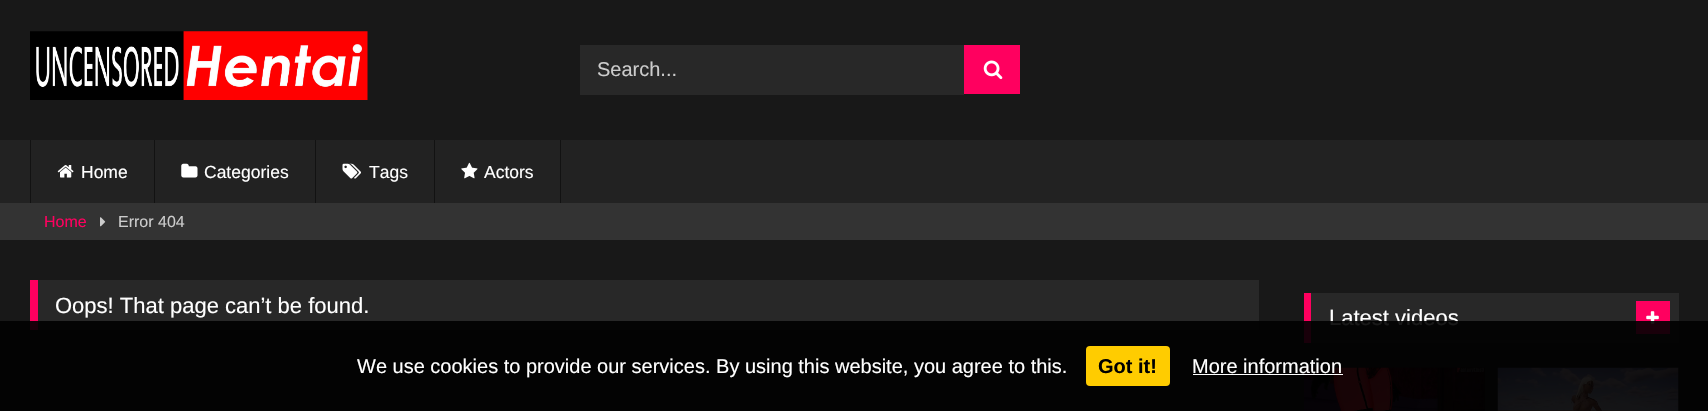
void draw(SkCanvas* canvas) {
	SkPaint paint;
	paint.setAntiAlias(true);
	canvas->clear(0xff181818);
	canvas->drawImageRect(SkImages::DeferredFromEncodedData(SkData::MakeFromFileName("img1.png")), SkRect::MakeXYWH(30, 31, 338, 69), SkSamplingOptions());
	paint.setColor(0xff282828);
	canvas->drawRect(SkRect::MakeXYWH(580, 45, 384, 50), paint);
	SkFont f1(fontMgr->matchFamilyStyle("Liberation Sans", SkFontStyle::Normal()), 20);
	f1.setSubpixel(true);
	paint.setColor(0xffcccccc);
	canvas->drawString("Search...", 597, 76, f1, paint);
	paint.setColor(0xffff005f);
	canvas->drawRect(SkRect::MakeXYWH(964, 45, 56, 49), paint);
	canvas->drawImageRect(SkImages::DeferredFromEncodedData(SkData::MakeFromFileName("img2.png")), SkRect::MakeXYWH(983, 60, 20, 20), SkSamplingOptions());
	paint.setColor(0xff222222);
	canvas->drawRect(SkRect::MakeXYWH(0, 140, 1708, 63), paint);
	paint.setColor(0xff121212);
	canvas->drawRect(SkRect::MakeXYWH(154, 140, 1, 63), paint);
	canvas->drawRect(SkRect::MakeXYWH(30, 140, 1, 63), paint);
	canvas->drawImageRect(SkImages::DeferredFromEncodedData(SkData::MakeFromFileName("img3.png")), SkRect::MakeXYWH(57, 165, 17, 13), SkSamplingOptions());
	SkFont f2(fontMgr->matchFamilyStyle("Liberation Sans", SkFontStyle::Normal()), 17.5);
	f2.setSubpixel(true);
	paint.setColor(0xffffffff);
	canvas->drawString("Home", 81, 178, f2, paint);
	paint.setColor(0xff121212);
	canvas->drawRect(SkRect::MakeXYWH(315, 140, 1, 63), paint);
	canvas->drawImageRect(SkImages::DeferredFromEncodedData(SkData::MakeFromFileName("img4.png")), SkRect::MakeXYWH(181, 163, 17, 15), SkSamplingOptions());
	paint.setColor(0xffffffff);
	canvas->drawString("Categories", 204, 178, f2, paint);
	paint.setColor(0xff121212);
	canvas->drawRect(SkRect::MakeXYWH(434, 140, 1, 63), paint);
	canvas->drawImageRect(SkImages::DeferredFromEncodedData(SkData::MakeFromFileName("img5.png")), SkRect::MakeXYWH(342, 163, 19, 16), SkSamplingOptions());
	paint.setColor(0xffffffff);
	canvas->drawString("Tags", 369, 178, f2, paint);
	paint.setColor(0xff121212);
	canvas->drawRect(SkRect::MakeXYWH(560, 140, 1, 63), paint);
	canvas->drawImageRect(SkImages::DeferredFromEncodedData(SkData::MakeFromFileName("img6.png")), SkRect::MakeXYWH(461, 162, 17, 17), SkSamplingOptions());
	paint.setColor(0xffffffff);
	canvas->drawString("Actors", 484, 178, f2, paint);
	paint.setColor(0xff333333);
	canvas->drawRect(SkRect::MakeXYWH(0, 203, 1708, 37), paint);
	SkFont f3(fontMgr->matchFamilyStyle("Liberation Sans", SkFontStyle::Normal()), 16);
	f3.setSubpixel(true);
	paint.setColor(0xffff005f);
	canvas->drawString("Home", 44, 227, f3, paint);
	canvas->drawImageRect(SkImages::DeferredFromEncodedData(SkData::MakeFromFileName("img7.png")), SkRect::MakeXYWH(100, 217, 6, 10), SkSamplingOptions());
	paint.setColor(0xffcccccc);
	canvas->drawString("Error 404", 118, 227, f3, paint);
	paint.setColor(0xff282828);
	canvas->drawRect(SkRect::MakeXYWH(38, 280, 1221, 50), paint);
	paint.setColor(0xffff005f);
	canvas->drawRect(SkRect::MakeXYWH(30, 280, 8, 50), paint);
	SkFont f4(fontMgr->matchFamilyStyle("Liberation Sans", SkFontStyle::Normal()), 22);
	f4.setSubpixel(true);
	paint.setColor(0xffffffff);
	canvas->drawString("Oops! That page can’t be found.", 55, 313, f4, paint);
	paint.setColor(0xff282828);
	canvas->drawRect(SkRect::MakeXYWH(31, 410, 885, 1), paint);
	canvas->drawRect(SkRect::MakeXYWH(1311, 293, 368, 50), paint);
	paint.setColor(0xffff005f);
	canvas->drawRect(SkRect::MakeXYWH(1304, 293, 7, 50), paint);
	paint.setColor(0xffffffff);
	canvas->drawString("Latest videos", 1329, 325, f4, paint);
	paint.setColor(0xffff005f);
	canvas->drawRect(SkRect::MakeXYWH(1636, 301, 34, 33), paint);
	canvas->drawImageRect(SkImages::DeferredFromEncodedData(SkData::MakeFromFileName("img8.png")), SkRect::MakeXYWH(1646, 311, 13, 13), SkSamplingOptions());
	canvas->drawImageRect(SkImages::DeferredFromEncodedData(SkData::MakeFromFileName("img9.png")), SkRect::MakeXYWH(1304, 367, 181, 44), SkSamplingOptions());
	paint.setColor(0xff000000);
	canvas->drawRect(SkRect::MakeXYWH(1678, 368, 1, 43), paint);
	canvas->drawImageRect(SkImages::DeferredFromEncodedData(SkData::MakeFromFileName("img10.png")), SkRect::MakeXYWH(1497, 367, 182, 44), SkSamplingOptions());
	paint.setColor(0xe6000000);
	canvas->drawRect(SkRect::MakeXYWH(0, 321, 1708, 90), paint);
	paint.setColor(0xffffffff);
	canvas->drawString("We use cookies to provide our services. By using this website, you agree to this.", 357, 373, f1, paint);
	paint.setColor(0xffffcc00);
	canvas->drawRoundRect(SkRect::MakeXYWH(1086, 346, 84, 40), 4, 4, paint);
	SkFont f5(fontMgr->matchFamilyStyle("Liberation Sans", SkFontStyle::Bold()), 20);
	f5.setSubpixel(true);
	paint.setColor(0xff000000);
	canvas->drawString("Got it!", 1098, 373, f5, paint);
	paint.setColor(0xffffffff);
	canvas->drawString("More information", 1192, 373, f1, paint);
	canvas->drawRect(SkRect::MakeXYWH(1193, 374, 150, 1), paint);
}
